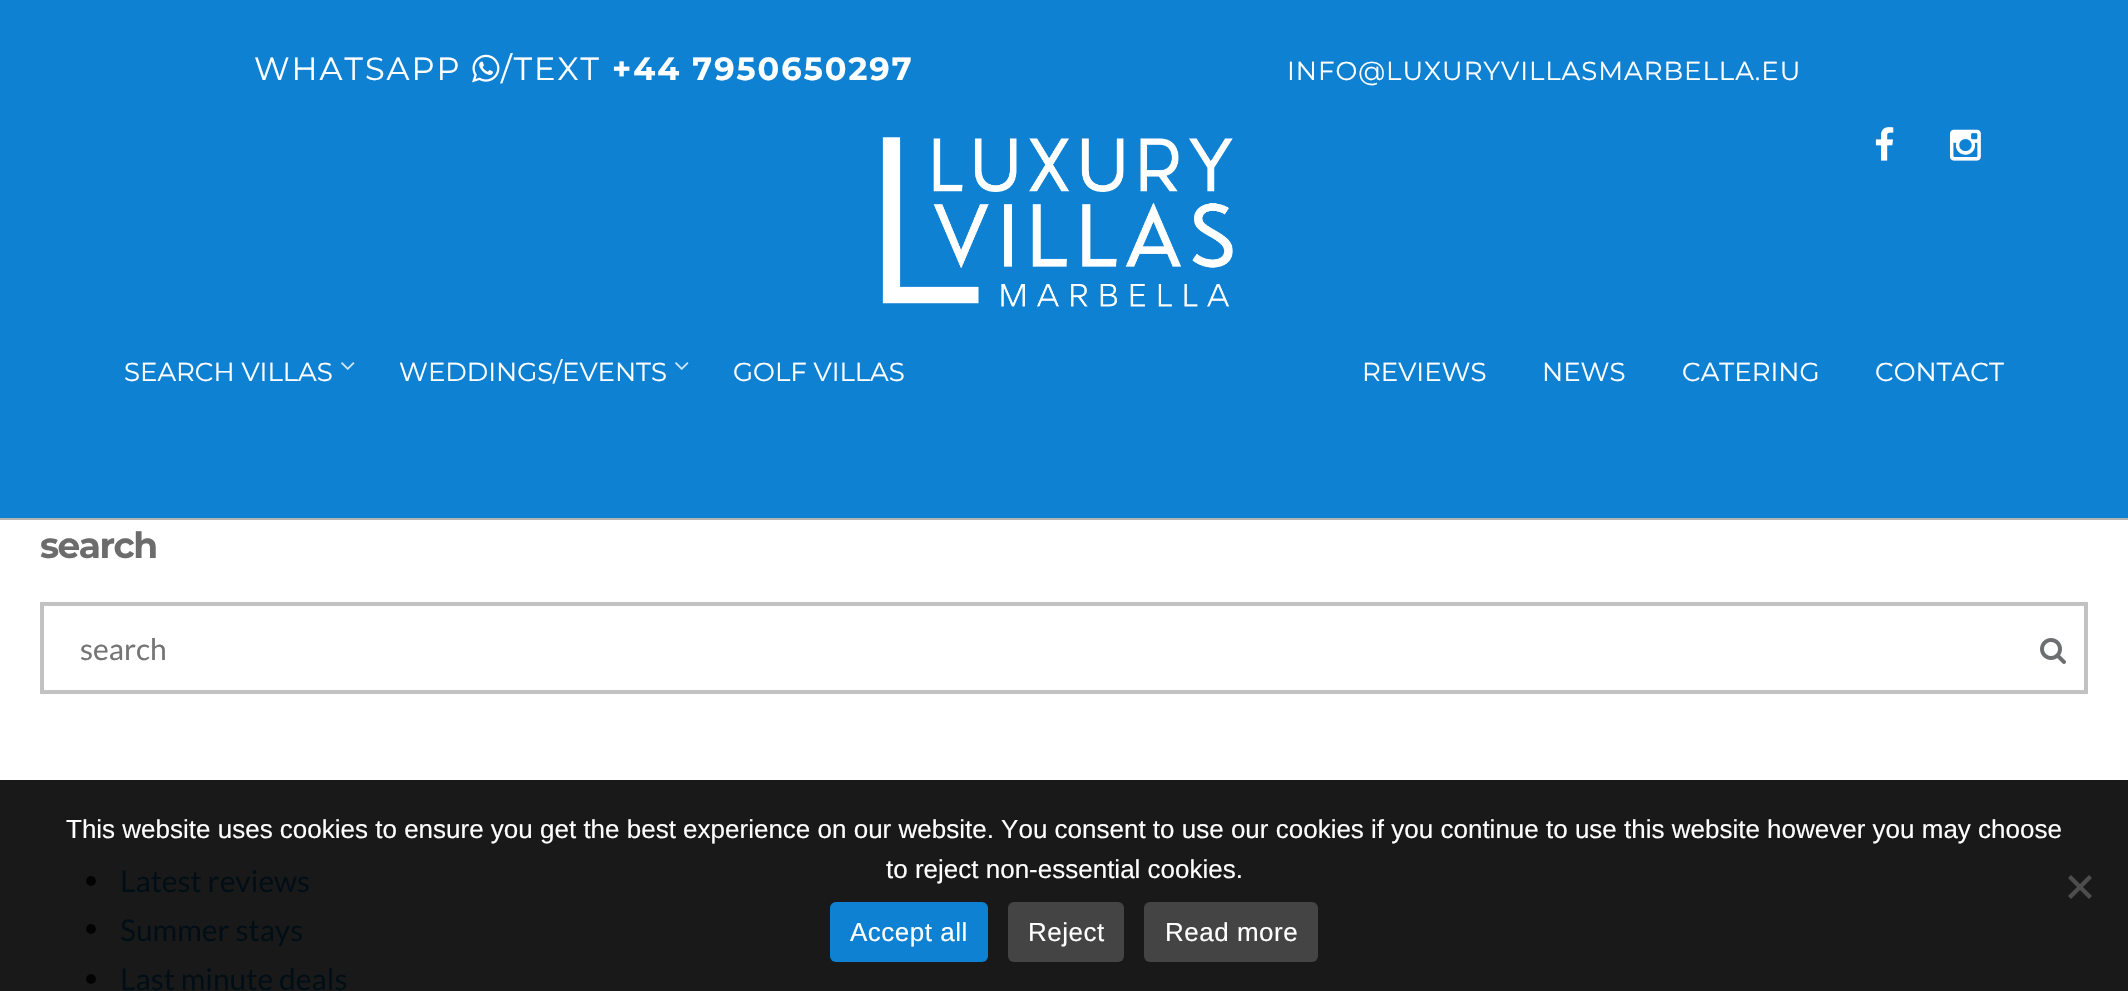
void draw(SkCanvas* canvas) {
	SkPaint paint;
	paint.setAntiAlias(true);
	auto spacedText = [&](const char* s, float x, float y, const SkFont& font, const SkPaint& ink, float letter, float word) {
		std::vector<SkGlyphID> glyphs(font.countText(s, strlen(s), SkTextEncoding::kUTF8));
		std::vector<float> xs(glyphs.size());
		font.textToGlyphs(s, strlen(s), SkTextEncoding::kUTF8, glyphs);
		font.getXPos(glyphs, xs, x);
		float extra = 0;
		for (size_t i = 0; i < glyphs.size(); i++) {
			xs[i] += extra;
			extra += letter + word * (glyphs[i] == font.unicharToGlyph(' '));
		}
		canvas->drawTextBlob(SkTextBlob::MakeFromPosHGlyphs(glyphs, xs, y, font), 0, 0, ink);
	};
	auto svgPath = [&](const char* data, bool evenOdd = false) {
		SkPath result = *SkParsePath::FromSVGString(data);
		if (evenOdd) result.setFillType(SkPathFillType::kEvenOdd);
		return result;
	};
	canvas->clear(0xffffffff);
	paint.setColor(0xff191919);
	canvas->drawRect(SkRect::MakeXYWH(0, 780, 2128, 211), paint);
	paint.setColor(0xff0e81d3);
	canvas->drawRect(SkRect::MakeXYWH(0, 0, 2128, 518), paint);
	paint.setColor(0xffb3b3b3);
	canvas->drawRect(SkRect::MakeXYWH(0, 518, 2128, 2), paint);
	SkFont f1(fontMgr->matchFamilyStyle("Montserrat", SkFontStyle::Normal()), 32);
	f1.setSubpixel(true);
	paint.setColor(0xffffffff);
	spacedText("WHATSAPP", 254, 80, f1, paint, 2, 0);
	canvas->drawImageRect(SkImages::DeferredFromEncodedData(SkData::MakeFromFileName("img1.png")), SkRect::MakeXYWH(472, 54, 28, 29), SkSamplingOptions());
	spacedText("/TEXT", 501, 80, f1, paint, 2, 0);
	SkFont f2(fontMgr->matchFamilyStyle("Montserrat", SkFontStyle::Bold()), 32);
	f2.setSubpixel(true);
	spacedText("+44 7950650297", 612, 80, f2, paint, 2, 0);
	SkFont f3(fontMgr->matchFamilyStyle("Montserrat", SkFontStyle::Normal()), 26);
	f3.setSubpixel(true);
	spacedText("INFO@LUXURYVILLASMARBELLA.EU", 1287, 80, f3, paint, 1, 0);
	canvas->drawImageRect(SkImages::DeferredFromEncodedData(SkData::MakeFromFileName("img2.png")), SkRect::MakeXYWH(1875, 127, 19, 34), SkSamplingOptions());
	canvas->drawImageRect(SkImages::DeferredFromEncodedData(SkData::MakeFromFileName("img3.png")), SkRect::MakeXYWH(1950, 129, 31, 32), SkSamplingOptions());
	canvas->drawImageRect(SkImages::DeferredFromEncodedData(SkData::MakeFromFileName("img4.png")), SkRect::MakeXYWH(882, 137, 351, 170), SkSamplingOptions());
	canvas->drawString("SEARCH VILLAS", 124, 381, f3, paint);
	canvas->drawImageRect(SkImages::DeferredFromEncodedData(SkData::MakeFromFileName("img5.png")), SkRect::MakeXYWH(341, 362, 14, 8), SkSamplingOptions());
	canvas->drawString("WEDDINGS/EVENTS", 399, 381, f3, paint);
	canvas->drawImageRect(SkImages::DeferredFromEncodedData(SkData::MakeFromFileName("img5.png")), SkRect::MakeXYWH(675, 362, 14, 8), SkSamplingOptions());
	canvas->drawString("GOLF VILLAS", 733, 381, f3, paint);
	canvas->drawString("REVIEWS", 1362, 381, f3, paint);
	canvas->drawString("NEWS", 1542, 381, f3, paint);
	canvas->drawString("CATERING", 1682, 381, f3, paint);
	canvas->drawString("CONTACT", 1875, 381, f3, paint);
	SkFont f4(fontMgr->matchFamilyStyle("Montserrat", SkFontStyle::Bold()), 36);
	f4.setSubpixel(true);
	paint.setColor(0xff6c6c6c);
	spacedText("search", 40, 558, f4, paint, -1.5, 0);
	paint.setStroke(true);
	paint.setStrokeWidth(4);
	paint.setColor(0xffc2c2c2);
	canvas->drawRect(SkRect::MakeXYWH(42, 604, 2044, 88), paint);
	SkFont f5(fontMgr->matchFamilyStyle("Lato", SkFontStyle::Normal()), 30);
	f5.setSubpixel(true);
	paint.setStroke(false);
	paint.setColor(0xff757575);
	canvas->drawString("search", 80, 660, f5, paint);
	canvas->drawImageRect(SkImages::DeferredFromEncodedData(SkData::MakeFromFileName("img6.png")), SkRect::MakeXYWH(2040, 638, 26, 26), SkSamplingOptions());
	paint.setColor(0xff030303);
	canvas->drawCircle(91, 881, 5, paint);
	paint.setColor(0xff020e15);
	canvas->drawString("Latest reviews", 120, 892, f5, paint);
	paint.setColor(0xff030303);
	canvas->drawCircle(91, 929, 5, paint);
	paint.setColor(0xff020e15);
	canvas->drawString("Summer stays", 120, 941, f5, paint);
	paint.setColor(0xff030303);
	canvas->drawCircle(91, 979, 5, paint);
	paint.setColor(0xff020e15);
	canvas->drawString("Last minute deals", 120, 990, f5, paint);
	SkFont f6(fontMgr->matchFamilyStyle("Liberation Sans", SkFontStyle::Normal()), 26);
	f6.setSubpixel(true);
	paint.setColor(0xffffffff);
	canvas->drawString("This website uses cookies to ensure you get the best experience on our website. You consent to use our cookies if you continue to use this website however you may choose", 66, 838, f6, paint);
	canvas->drawString("to reject non-essential cookies.", 886, 878, f6, paint);
	paint.setColor(0xff4d4d4d);
	canvas->drawPath(svgPath("M2089 875L2092 878L2071 899L2068 896Z"), paint);
	canvas->drawPath(svgPath("M2068 878L2071 875L2092 896L2089 899Z"), paint);
	paint.setColor(0xff0e81d3);
	canvas->drawRoundRect(SkRect::MakeXYWH(830, 902, 158, 60), 6, 6, paint);
	paint.setColor(0xffffffff);
	spacedText("Accept all", 850, 941, f6, paint, 0.5, 0);
	paint.setColor(0xff444444);
	canvas->drawRoundRect(SkRect::MakeXYWH(1008, 902, 116, 60), 6, 6, paint);
	paint.setColor(0xffffffff);
	spacedText("Reject", 1028, 941, f6, paint, 0.5, 0);
	paint.setColor(0xff444444);
	canvas->drawRoundRect(SkRect::MakeXYWH(1144, 902, 174, 60), 6, 6, paint);
	paint.setColor(0xffffffff);
	spacedText("Read more", 1165, 941, f6, paint, 0.5, 0);
}
